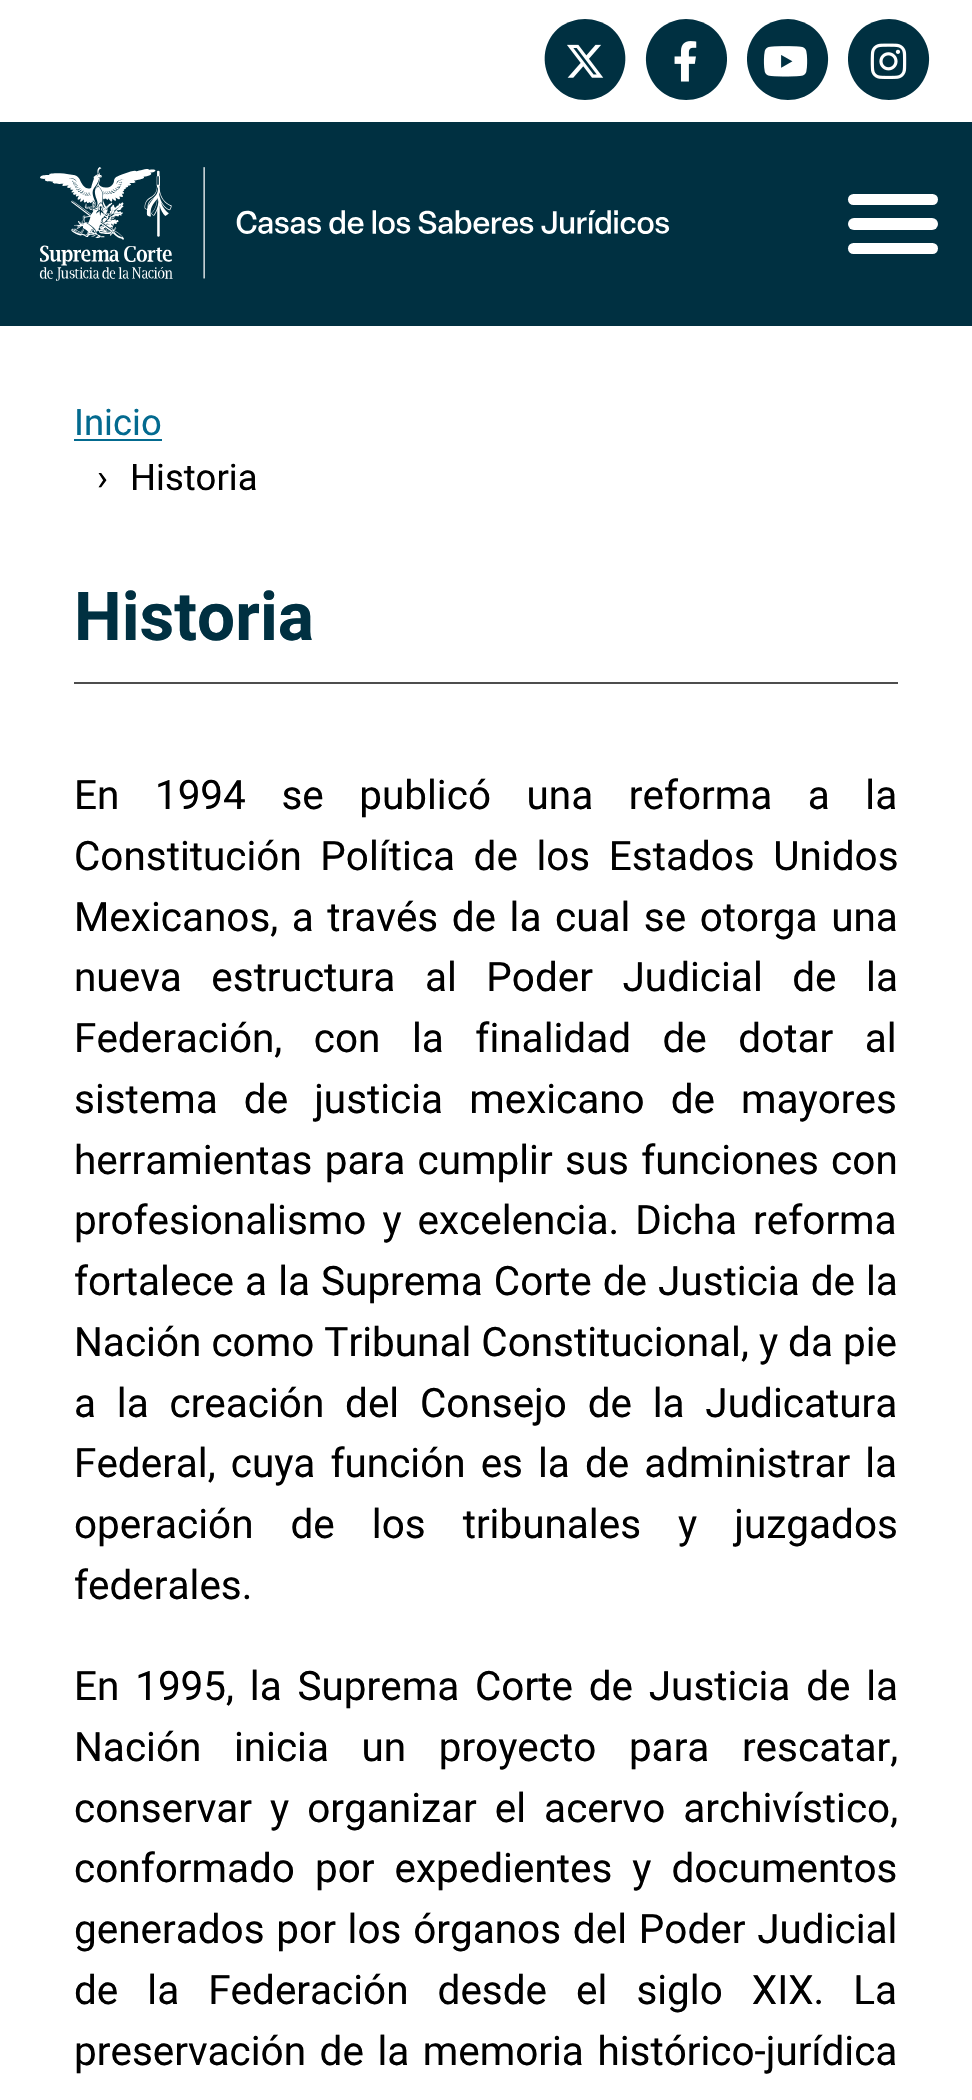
void draw(SkCanvas* canvas) {
	SkPaint paint;
	paint.setAntiAlias(true);
	auto spacedText = [&](const char* s, float x, float y, const SkFont& font, const SkPaint& ink, float letter, float word) {
		std::vector<SkGlyphID> glyphs(font.countText(s, strlen(s), SkTextEncoding::kUTF8));
		std::vector<float> xs(glyphs.size());
		font.textToGlyphs(s, strlen(s), SkTextEncoding::kUTF8, glyphs);
		font.getXPos(glyphs, xs, x);
		float extra = 0;
		for (size_t i = 0; i < glyphs.size(); i++) {
			xs[i] += extra;
			extra += letter + word * (glyphs[i] == font.unicharToGlyph(' '));
		}
		canvas->drawTextBlob(SkTextBlob::MakeFromPosHGlyphs(glyphs, xs, y, font), 0, 0, ink);
	};
	auto svgPath = [&](const char* data, bool evenOdd = false) {
		SkPath result = *SkParsePath::FromSVGString(data);
		if (evenOdd) result.setFillType(SkPathFillType::kEvenOdd);
		return result;
	};
	canvas->clear(0xffffffff);
	paint.setColor(0xff003041);
	canvas->drawPath(svgPath("M585 100C623 100 640 51 610 27C603 22 594 19 585 19C576 19 567 22 560 27C530 51 547 100 585 100Z"), paint);
	canvas->drawImageRect(SkImages::DeferredFromEncodedData(SkData::MakeFromFileName("img1.png")), SkRect::MakeXYWH(567, 44, 37, 34), SkSamplingOptions());
	canvas->drawPath(svgPath("M686 100C725 100 742 51 711 27C704 22 695 19 686 19C677 19 669 22 662 27C631 51 648 100 686 100Z"), paint);
	canvas->drawImageRect(SkImages::DeferredFromEncodedData(SkData::MakeFromFileName("img2.png")), SkRect::MakeXYWH(674, 41, 23, 41), SkSamplingOptions());
	canvas->drawPath(svgPath("M788 100C826 100 843 51 812 27C805 22 796 19 788 19C779 19 770 22 763 27C732 51 749 100 788 100Z"), paint);
	canvas->drawImageRect(SkImages::DeferredFromEncodedData(SkData::MakeFromFileName("img3.png")), SkRect::MakeXYWH(763, 46, 45, 31), SkSamplingOptions());
	canvas->drawPath(svgPath("M889 100C927 100 944 51 913 27C906 22 898 19 889 19C880 19 871 22 864 27C833 51 850 100 889 100Z"), paint);
	canvas->drawImageRect(SkImages::DeferredFromEncodedData(SkData::MakeFromFileName("img4.png")), SkRect::MakeXYWH(870, 43, 37, 36), SkSamplingOptions());
	canvas->drawRect(SkRect::MakeXYWH(0, 122, 972, 204), paint);
	canvas->drawImageRect(SkImages::DeferredFromEncodedData(SkData::MakeFromFileName("img5.png")), SkRect::MakeXYWH(39, 167, 631, 114), SkSamplingOptions());
	paint.setColor(0xffffffff);
	canvas->drawRoundRect(SkRect::MakeXYWH(848, 194, 90, 11), 5.5, 5.5, paint);
	canvas->drawRoundRect(SkRect::MakeXYWH(848, 218, 90, 12), 6, 6, paint);
	canvas->drawRoundRect(SkRect::MakeXYWH(848, 243, 90, 11), 5.5, 5.5, paint);
	SkFont f1(fontMgr->matchFamilyStyle("Roboto", SkFontStyle::Normal()), 36.5);
	f1.setSubpixel(true);
	paint.setColor(0xff036a8f);
	canvas->drawString("Inicio", 74, 435, f1, paint);
	canvas->drawRect(SkRect::MakeXYWH(74, 439, 88, 2), paint);
	paint.setColor(0xff000000);
	canvas->drawString("›", 97, 490, f1, paint);
	canvas->drawString("Historia", 130, 490, f1, paint);
	paint.setColor(0xff4d4d4d);
	canvas->drawRect(SkRect::MakeXYWH(74, 682, 824, 2), paint);
	SkFont f2(fontMgr->matchFamilyStyle("Roboto", SkFontStyle::Bold()), 67.5);
	f2.setSubpixel(true);
	paint.setColor(0xff003041);
	canvas->drawString("Historia", 74, 640, f2, paint);
	SkFont f3(fontMgr->matchFamilyStyle("Roboto", SkFontStyle::Normal()), 40.5);
	f3.setSubpixel(true);
	paint.setColor(0xff000000);
	spacedText("En 1994 se publicó una reforma a la", 74, 809, f3, paint, 0, 25.5);
	spacedText("Constitución Política de los Estados Unidos", 74, 870, f3, paint, 0, 8.5);
	spacedText("Mexicanos, a través de la cual se otorga una", 74, 931, f3, paint, 0, 3.5);
	spacedText("nueva estructura al Poder Judicial de la", 74, 991, f3, paint, 0, 19.5);
	spacedText("Federación, con la finalidad de dotar al", 74, 1052, f3, paint, 0, 21.5);
	spacedText("sistema de justicia mexicano de mayores", 74, 1113, f3, paint, 0, 16);
	spacedText("herramientas para cumplir sus funciones con", 74, 1174, f3, paint, 0, 2.25);
	spacedText("profesionalismo y excelencia. Dicha reforma", 74, 1234, f3, paint, 0, 6);
	spacedText("fortalece a la Suprema Corte de Justicia de la", 74, 1295, f3, paint, 0, 1);
	canvas->drawString("Nación como Tribunal Constitucional, y da pie", 74, 1356, f3, paint);
	spacedText("a la creación del Consejo de la Judicatura", 74, 1417, f3, paint, 0, 10.75);
	spacedText("Federal, cuya función es la de administrar la", 74, 1477, f3, paint, 0, 5);
	spacedText("operación de los tribunales y juzgados", 74, 1538, f3, paint, 0, 27);
	canvas->drawString("federales.", 74, 1599, f3, paint);
	spacedText("En 1995, la Suprema Corte de Justicia de la", 74, 1700, f3, paint, 0, 5.75);
	spacedText("Nación inicia un proyecto para rescatar,", 74, 1761, f3, paint, 0, 22.5);
	spacedText("conservar y organizar el acervo archivístico,", 74, 1822, f3, paint, 0, 8);
	spacedText("conformado por expedientes y documentos", 74, 1882, f3, paint, 0, 10);
	spacedText("generados por los órganos del Poder Judicial", 74, 1943, f3, paint, 0, 1.75);
	spacedText("de la Federación desde el siglo XIX. La", 74, 2004, f3, paint, 0, 19);
	spacedText("preservación de la memoria histórico-jurídica", 74, 2065, f3, paint, 0, 3.5);
}
